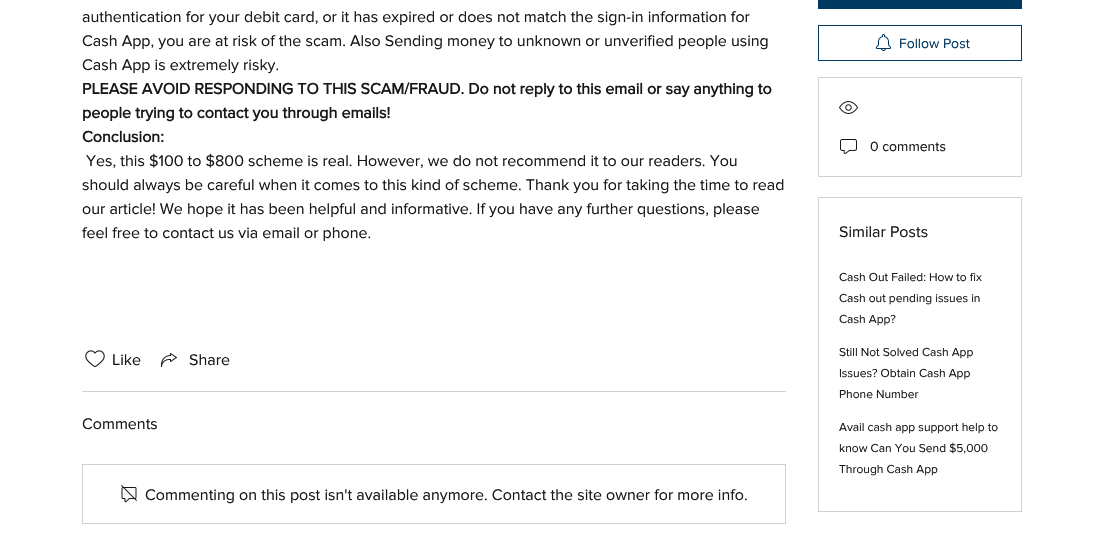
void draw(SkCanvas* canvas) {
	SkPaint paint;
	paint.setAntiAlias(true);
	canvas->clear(0xffffffff);
	SkFont f1(fontMgr->matchFamilyStyle("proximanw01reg", SkFontStyle::Normal()), 16);
	f1.setSubpixel(true);
	paint.setColor(0xff181818);
	canvas->drawString("authentication for your debit card, or it has expired or does not match the sign-in information for", 82, 22, f1, paint);
	canvas->drawString("Cash App, you are at risk of the scam. Also Sending money to unknown or unverified people using", 82, 46, f1, paint);
	canvas->drawString("Cash App is extremely risky.", 82, 70, f1, paint);
	SkFont f2(fontMgr->matchFamilyStyle("proximanw01reg", SkFontStyle::Bold()), 16);
	f2.setSubpixel(true);
	canvas->drawString("PLEASE AVOID RESPONDING TO THIS SCAM/FRAUD. Do not reply to this email or say anything to", 82, 94, f2, paint);
	canvas->drawString("people trying to contact you through emails!", 82, 118, f2, paint);
	canvas->drawString("Conclusion:", 82, 142, f2, paint);
	canvas->drawString("Yes, this $100 to $800 scheme is real. However, we do not recommend it to our readers. You", 86, 166, f1, paint);
	canvas->drawString("should always be careful when it comes to this kind of scheme. Thank you for taking the time to read", 82, 190, f1, paint);
	canvas->drawString("our article! We hope it has been helpful and informative. If you have any further questions, please", 82, 214, f1, paint);
	canvas->drawString("feel free to contact us via email or phone.", 82, 238, f1, paint);
	canvas->drawImageRect(SkImages::DeferredFromEncodedData(SkData::MakeFromFileName("img1.png")), SkRect::MakeXYWH(85, 350, 20, 18), SkSamplingOptions());
	canvas->drawString("Like", 112, 365, f1, paint);
	canvas->drawImageRect(SkImages::DeferredFromEncodedData(SkData::MakeFromFileName("img2.png")), SkRect::MakeXYWH(161, 353, 16, 14), SkSamplingOptions());
	canvas->drawString("Share", 189, 365, f1, paint);
	paint.setColor(0xffd1d1d1);
	canvas->drawRect(SkRect::MakeXYWH(82, 391, 704, 1), paint);
	paint.setColor(0xff181818);
	canvas->drawString("Comments", 82, 429, f1, paint);
	paint.setStroke(true);
	paint.setStrokeWidth(1);
	paint.setColor(0xffd1d1d1);
	canvas->drawRect(SkRect::MakeXYWH(82.5, 464.5, 703, 59), paint);
	canvas->drawImageRect(SkImages::DeferredFromEncodedData(SkData::MakeFromFileName("img3.png")), SkRect::MakeXYWH(121, 485, 16, 18), SkSamplingOptions());
	paint.setStroke(false);
	paint.setColor(0xff181818);
	canvas->drawString("Commenting on this post isn't available anymore. Contact the site owner for more info.", 145, 500, f1, paint);
	paint.setColor(0xff003862);
	canvas->drawRect(SkRect::MakeXYWH(818, 0, 204, 9), paint);
	paint.setStroke(true);
	canvas->drawRect(SkRect::MakeXYWH(818.5, 25.5, 203, 35), paint);
	canvas->drawImageRect(SkImages::DeferredFromEncodedData(SkData::MakeFromFileName("img4.png")), SkRect::MakeXYWH(876, 34, 15, 17), SkSamplingOptions());
	SkFont f3(fontMgr->matchFamilyStyle("proximanw01reg", SkFontStyle::Normal()), 14);
	f3.setSubpixel(true);
	paint.setStroke(false);
	canvas->drawString("Follow Post", 899, 48, f3, paint);
	paint.setStroke(true);
	paint.setColor(0xffd1d1d1);
	canvas->drawRect(SkRect::MakeXYWH(818.5, 77.5, 203, 99), paint);
	canvas->drawImageRect(SkImages::DeferredFromEncodedData(SkData::MakeFromFileName("img5.png")), SkRect::MakeXYWH(839, 101, 19, 13), SkSamplingOptions());
	canvas->drawImageRect(SkImages::DeferredFromEncodedData(SkData::MakeFromFileName("img6.png")), SkRect::MakeXYWH(840, 139, 17, 15), SkSamplingOptions());
	paint.setStroke(false);
	paint.setColor(0xff181818);
	canvas->drawString("0 comments", 870, 151, f3, paint);
	paint.setStroke(true);
	paint.setColor(0xffd1d1d1);
	canvas->drawRect(SkRect::MakeXYWH(818.5, 197.5, 203, 314), paint);
	paint.setStroke(false);
	paint.setColor(0xff181818);
	canvas->drawString("Similar Posts", 839, 237, f1, paint);
	SkFont f4(fontMgr->matchFamilyStyle("proximanw01reg", SkFontStyle::Normal()), 12);
	f4.setSubpixel(true);
	canvas->drawString("Cash Out Failed: How to fix", 839, 281, f4, paint);
	canvas->drawString("Cash out pending issues in", 839, 302, f4, paint);
	canvas->drawString("Cash App?", 839, 323, f4, paint);
	canvas->drawString("Still Not Solved Cash App", 839, 356, f4, paint);
	canvas->drawString("Issues? Obtain Cash App", 839, 377, f4, paint);
	canvas->drawString("Phone Number", 839, 398, f4, paint);
	canvas->drawString("Avail cash app support help to", 839, 431, f4, paint);
	canvas->drawString("know Can You Send $5,000", 839, 452, f4, paint);
	canvas->drawString("Through Cash App", 839, 473, f4, paint);
}
